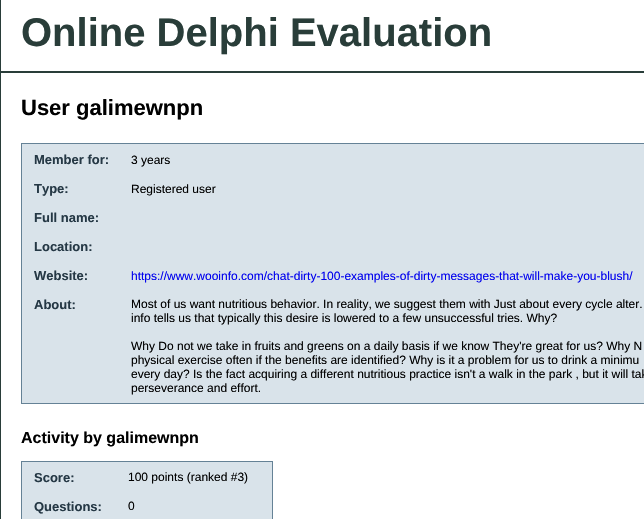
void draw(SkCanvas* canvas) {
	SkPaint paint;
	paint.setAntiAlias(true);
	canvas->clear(0xffffffff);
	paint.setStroke(true);
	paint.setStrokeWidth(1);
	paint.setColor(0xff293d39);
	canvas->drawRect(SkRect::MakeXYWH(0.5, -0.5, 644, 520), paint);
	paint.setStroke(false);
	canvas->drawRect(SkRect::MakeXYWH(1, 71, 643, 2), paint);
	SkFont f1(fontMgr->matchFamilyStyle("Liberation Sans", SkFontStyle::Bold()), 40);
	f1.setSubpixel(true);
	canvas->drawString("Online Delphi Evaluation", 21, 46, f1, paint);
	SkFont f2(fontMgr->matchFamilyStyle("Liberation Sans", SkFontStyle::Bold()), 22);
	f2.setSubpixel(true);
	paint.setColor(0xff000000);
	canvas->drawString("User galimewnpn", 21, 115, f2, paint);
	paint.setColor(0xffd9e3ea);
	canvas->drawRect(SkRect::MakeXYWH(21.5, 143.5, 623, 260), paint);
	paint.setStroke(true);
	paint.setColor(0xff658296);
	canvas->drawRect(SkRect::MakeXYWH(21.5, 143.5, 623, 260), paint);
	SkFont f3(fontMgr->matchFamilyStyle("Liberation Sans", SkFontStyle::Bold()), 13);
	f3.setSubpixel(true);
	paint.setStroke(false);
	paint.setColor(0xff253845);
	canvas->drawString("Member for:", 34, 164, f3, paint);
	SkFont f4(fontMgr->matchFamilyStyle("Liberation Sans", SkFontStyle::Normal()), 12);
	f4.setSubpixel(true);
	paint.setColor(0xff000000);
	canvas->drawString("3 years", 131, 164, f4, paint);
	paint.setColor(0xff253845);
	canvas->drawString("Type:", 34, 193, f3, paint);
	paint.setColor(0xff000000);
	canvas->drawString("Registered user", 131, 193, f4, paint);
	paint.setColor(0xff253845);
	canvas->drawString("Full name:", 34, 222, f3, paint);
	canvas->drawString("Location:", 34, 251, f3, paint);
	canvas->drawString("Website:", 34, 280, f3, paint);
	paint.setColor(0xff0000ee);
	canvas->drawString("https://www.wooinfo.com/chat-dirty-100-examples-of-dirty-messages-that-will-make-you-blush/", 131, 280, f4, paint);
	paint.setColor(0xff253845);
	canvas->drawString("About:", 34, 309, f3, paint);
	paint.setColor(0xff000000);
	canvas->drawString("Most of us want nutritious behavior. In reality, we suggest them with Just about every cycle alter.", 131, 308, f4, paint);
	canvas->drawString("info tells us that typically this desire is lowered to a few unsuccessful tries. Why?", 131, 322, f4, paint);
	canvas->drawString("Why Do not we take in fruits and greens on a daily basis if we know They're great for us? Why N", 131, 350, f4, paint);
	canvas->drawString("physical exercise often if the benefits are identified? Why is it a problem for us to drink a minimu", 131, 364, f4, paint);
	canvas->drawString("every day? Is the fact acquiring a different nutritious practice isn't a walk in the park , but it will tak", 131, 378, f4, paint);
	canvas->drawString("perseverance and effort.", 131, 392, f4, paint);
	SkFont f5(fontMgr->matchFamilyStyle("Liberation Sans", SkFontStyle::Bold()), 16);
	f5.setSubpixel(true);
	canvas->drawString("Activity by galimewnpn", 21, 443, f5, paint);
	paint.setColor(0xffd9e3ea);
	canvas->drawRect(SkRect::MakeXYWH(21.5, 461.5, 251, 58), paint);
	paint.setStroke(true);
	paint.setColor(0xff658296);
	canvas->drawRect(SkRect::MakeXYWH(21.5, 461.5, 251, 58), paint);
	paint.setStroke(false);
	paint.setColor(0xff253845);
	canvas->drawString("Score:", 34, 482, f3, paint);
	paint.setColor(0xff000000);
	canvas->drawString("100 points (ranked #3)", 128, 481, f4, paint);
	paint.setColor(0xff253845);
	canvas->drawString("Questions:", 34, 511, f3, paint);
	paint.setColor(0xff000000);
	canvas->drawString("0", 128, 510, f4, paint);
}
